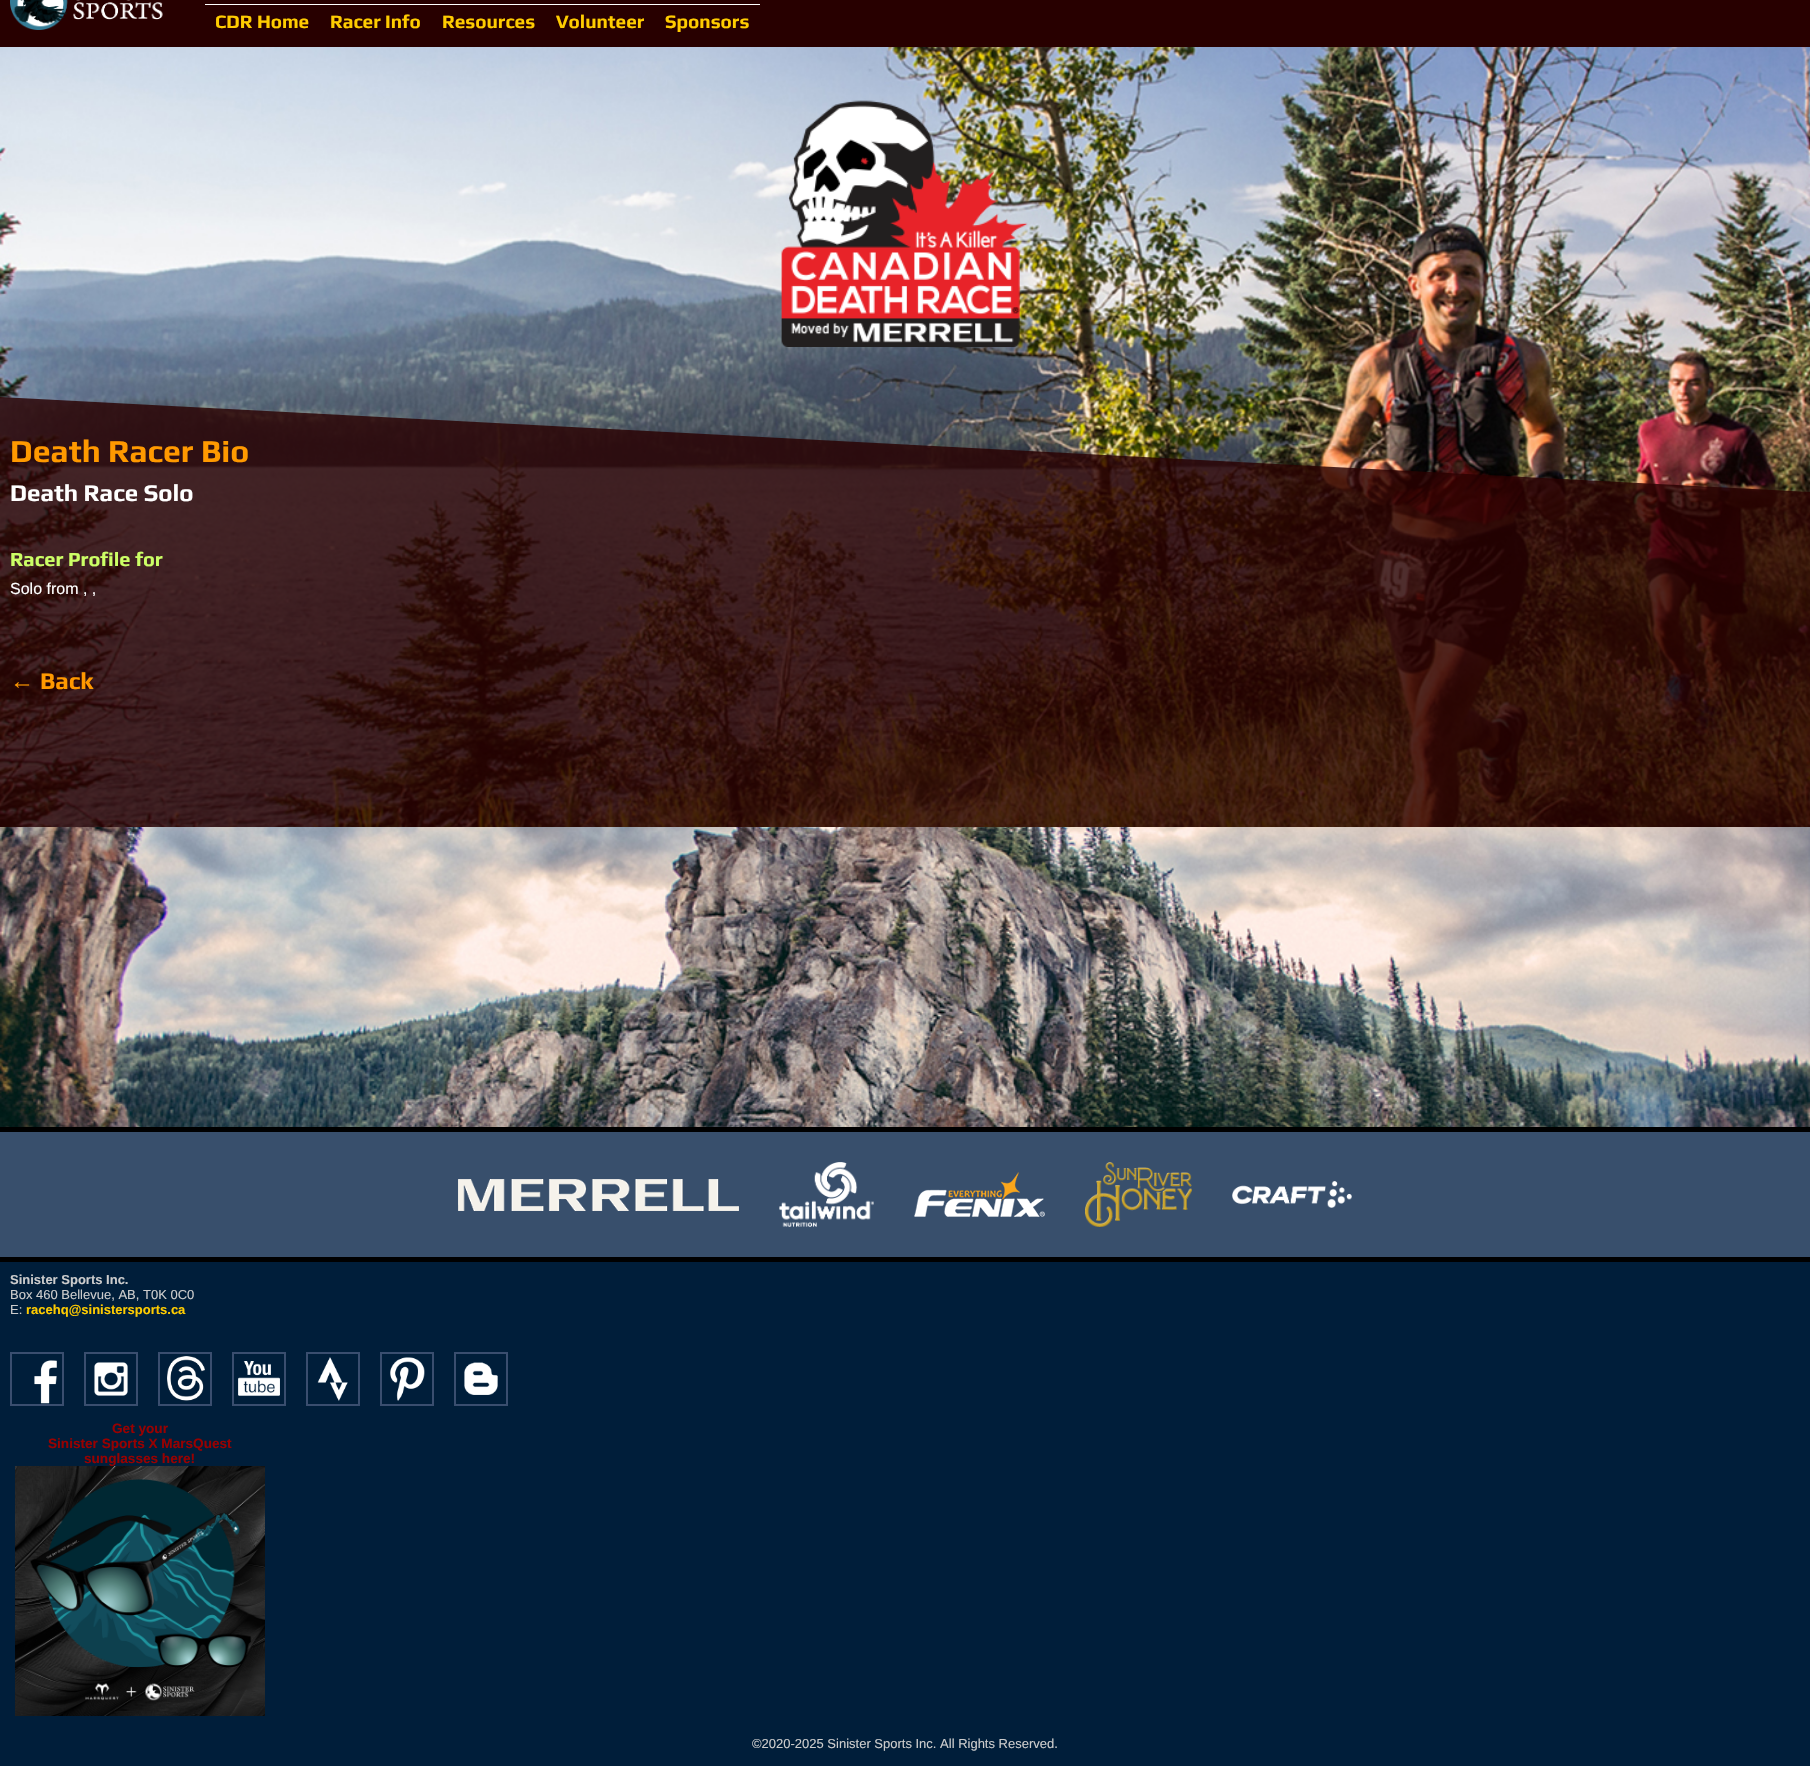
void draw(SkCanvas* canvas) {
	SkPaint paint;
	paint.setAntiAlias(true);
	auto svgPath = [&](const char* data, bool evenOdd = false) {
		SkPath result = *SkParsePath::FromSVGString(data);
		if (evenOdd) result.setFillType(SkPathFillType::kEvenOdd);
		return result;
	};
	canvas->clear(0xffffffff);
	paint.setColor(0xff280000);
	canvas->drawRect(SkRect::MakeXYWH(0, 0, 1810, 47), paint);
	canvas->drawImageRect(SkImages::DeferredFromEncodedData(SkData::MakeFromFileName("img1.png")), SkRect::MakeXYWH(10, 0, 153, 30), SkSamplingOptions());
	paint.setColor(0xffffffff);
	canvas->drawRect(SkRect::MakeXYWH(205, 4, 555, 1), paint);
	SkFont f1(fontMgr->matchFamilyStyle("Play", SkFontStyle::Bold()), 19);
	f1.setSubpixel(true);
	paint.setColor(0xffffcc00);
	canvas->drawString("CDR Home", 215, 28, f1, paint);
	canvas->drawString("Racer Info", 330, 28, f1, paint);
	canvas->drawString("Resources", 442, 28, f1, paint);
	canvas->drawString("Volunteer", 556, 28, f1, paint);
	canvas->drawString("Sponsors", 665, 28, f1, paint);
	canvas->drawImageRect(SkImages::DeferredFromEncodedData(SkData::MakeFromFileName("img2.png")), SkRect::MakeXYWH(0, 47, 1810, 780), SkSamplingOptions());
	canvas->drawImageRect(SkImages::DeferredFromEncodedData(SkData::MakeFromFileName("img3.png")), SkRect::MakeXYWH(781, 100, 247, 247), SkSamplingOptions());
	canvas->save();
	canvas->clipRect(SkRect::MakeXYWH(0, 397, 1810, 130));
	paint.setColor(0xd1280000);
	canvas->drawPath(svgPath("M0 397L1810 492V622L0 527Z"), paint);
	canvas->restore();
	SkFont f2(fontMgr->matchFamilyStyle("Play", SkFontStyle::Bold()), 32);
	f2.setSubpixel(true);
	paint.setColor(0xffff9900);
	canvas->drawString("Death Racer Bio", 10, 462, f2, paint);
	SkFont f3(fontMgr->matchFamilyStyle("Play", SkFontStyle::Bold()), 24);
	f3.setSubpixel(true);
	paint.setColor(0xffffffff);
	canvas->drawString("Death Race Solo", 10, 501, f3, paint);
	paint.setColor(0xd1280000);
	canvas->drawRect(SkRect::MakeXYWH(0, 527, 1810, 300), paint);
	SkFont f4(fontMgr->matchFamilyStyle("Play", SkFontStyle::Bold()), 20);
	f4.setSubpixel(true);
	paint.setColor(0xffccff66);
	canvas->drawString("Racer Profile for", 10, 566, f4, paint);
	SkFont f5(fontMgr->matchFamilyStyle("Liberation Sans", SkFontStyle::Normal()), 16);
	f5.setSubpixel(true);
	paint.setColor(0xffffffff);
	canvas->drawString("Solo from , ,", 10, 594, f5, paint);
	SkFont f6(fontMgr->matchFamilyStyle("Liberation Sans", SkFontStyle::Bold()), 24);
	f6.setSubpixel(true);
	paint.setColor(0xffff9900);
	canvas->drawString("←", 10, 689, f6, paint);
	canvas->drawString("Back", 40, 689, f3, paint);
	canvas->drawImageRect(SkImages::DeferredFromEncodedData(SkData::MakeFromFileName("img4.png")), SkRect::MakeXYWH(0, 827, 1810, 300), SkSamplingOptions());
	paint.setColor(0xff384f6c);
	canvas->drawRect(SkRect::MakeXYWH(0, 1132, 1810, 125), paint);
	paint.setColor(0xff000000);
	canvas->drawRect(SkRect::MakeXYWH(0, 1127, 1810, 5), paint);
	canvas->drawImageRect(SkImages::DeferredFromEncodedData(SkData::MakeFromFileName("img5.png")), SkRect::MakeXYWH(458, 1179, 281, 32), SkSamplingOptions());
	canvas->drawImageRect(SkImages::DeferredFromEncodedData(SkData::MakeFromFileName("img6.png")), SkRect::MakeXYWH(779, 1162, 95, 65), SkSamplingOptions());
	canvas->drawImageRect(SkImages::DeferredFromEncodedData(SkData::MakeFromFileName("img7.png")), SkRect::MakeXYWH(914, 1172, 131, 45), SkSamplingOptions());
	canvas->drawImageRect(SkImages::DeferredFromEncodedData(SkData::MakeFromFileName("img8.png")), SkRect::MakeXYWH(1085, 1162, 107, 65), SkSamplingOptions());
	canvas->drawImageRect(SkImages::DeferredFromEncodedData(SkData::MakeFromFileName("img9.png")), SkRect::MakeXYWH(1232, 1181, 120, 27), SkSamplingOptions());
	paint.setColor(0xff001e3a);
	canvas->drawRect(SkRect::MakeXYWH(0, 1262, 1810, 504), paint);
	paint.setColor(0xff000000);
	canvas->drawRect(SkRect::MakeXYWH(0, 1257, 1810, 5), paint);
	SkFont f7(fontMgr->matchFamilyStyle("Liberation Sans", SkFontStyle::Bold()), 13);
	f7.setSubpixel(true);
	paint.setColor(0xffcccccc);
	canvas->drawString("Sinister Sports Inc.", 10, 1284, f7, paint);
	SkFont f8(fontMgr->matchFamilyStyle("Liberation Sans", SkFontStyle::Normal()), 13);
	f8.setSubpixel(true);
	canvas->drawString("Box 460 Bellevue, AB, T0K 0C0", 10, 1299, f8, paint);
	canvas->drawString("E:", 10, 1314, f8, paint);
	paint.setColor(0xffffcc00);
	canvas->drawString("racehq@sinistersports.ca", 26, 1314, f7, paint);
	paint.setStroke(true);
	paint.setStrokeWidth(2);
	paint.setColor(0xff3a4e6f);
	canvas->drawRect(SkRect::MakeXYWH(11, 1353, 52, 52), paint);
	canvas->drawRect(SkRect::MakeXYWH(85, 1353, 52, 52), paint);
	canvas->drawRect(SkRect::MakeXYWH(159, 1353, 52, 52), paint);
	canvas->drawRect(SkRect::MakeXYWH(233, 1353, 52, 52), paint);
	canvas->drawRect(SkRect::MakeXYWH(307, 1353, 52, 52), paint);
	canvas->drawRect(SkRect::MakeXYWH(381, 1353, 52, 52), paint);
	canvas->drawRect(SkRect::MakeXYWH(455, 1353, 52, 52), paint);
	canvas->drawImageRect(SkImages::DeferredFromEncodedData(SkData::MakeFromFileName("img10.png")), SkRect::MakeXYWH(34, 1360, 23, 44), SkSamplingOptions());
	canvas->drawImageRect(SkImages::DeferredFromEncodedData(SkData::MakeFromFileName("img11.png")), SkRect::MakeXYWH(94, 1362, 34, 34), SkSamplingOptions());
	canvas->drawImageRect(SkImages::DeferredFromEncodedData(SkData::MakeFromFileName("img12.png")), SkRect::MakeXYWH(167, 1356, 38, 45), SkSamplingOptions());
	canvas->drawImageRect(SkImages::DeferredFromEncodedData(SkData::MakeFromFileName("img13.png")), SkRect::MakeXYWH(238, 1361, 42, 35), SkSamplingOptions());
	canvas->drawImageRect(SkImages::DeferredFromEncodedData(SkData::MakeFromFileName("img14.png")), SkRect::MakeXYWH(317, 1357, 31, 44), SkSamplingOptions());
	canvas->drawImageRect(SkImages::DeferredFromEncodedData(SkData::MakeFromFileName("img15.png")), SkRect::MakeXYWH(390, 1357, 35, 44), SkSamplingOptions());
	canvas->drawImageRect(SkImages::DeferredFromEncodedData(SkData::MakeFromFileName("img16.png")), SkRect::MakeXYWH(464, 1362, 34, 33), SkSamplingOptions());
	SkFont f9(fontMgr->matchFamilyStyle("Liberation Sans", SkFontStyle::Bold()), 13.6);
	f9.setSubpixel(true);
	paint.setStroke(false);
	paint.setColor(0xff990000);
	canvas->drawString("Get your", 112, 1433, f9, paint);
	canvas->drawString("Sinister Sports X MarsQuest", 48, 1448, f9, paint);
	canvas->drawString("sunglasses here!", 84, 1463, f9, paint);
	canvas->drawImageRect(SkImages::DeferredFromEncodedData(SkData::MakeFromFileName("img17.png")), SkRect::MakeXYWH(15, 1466, 250, 250), SkSamplingOptions());
	paint.setColor(0xffcccccc);
	canvas->drawString("©2020-2025 Sinister Sports Inc. All Rights Reserved.", 752, 1748, f8, paint);
}
